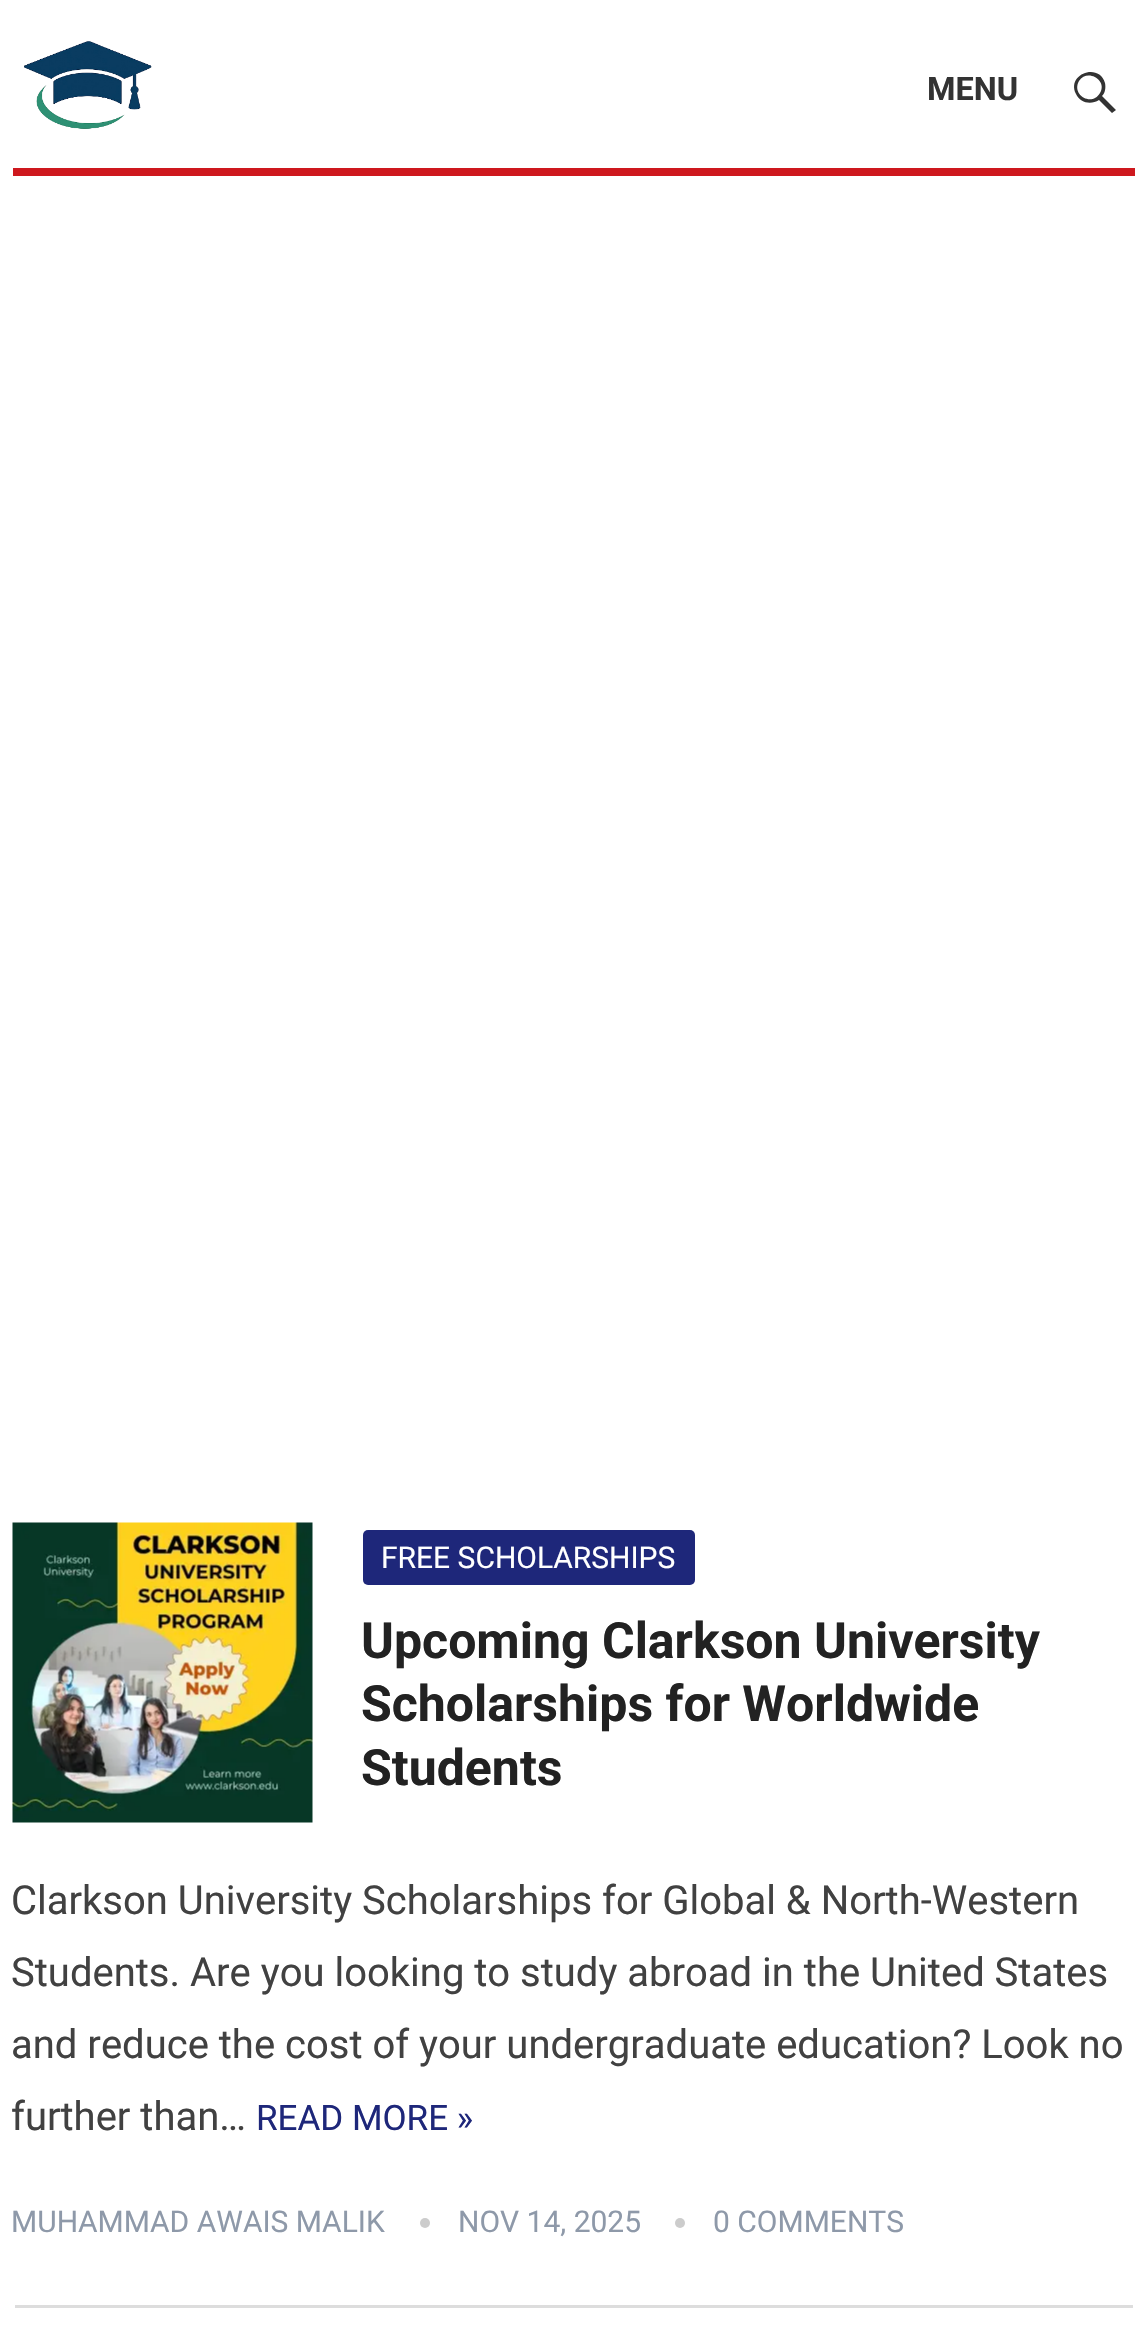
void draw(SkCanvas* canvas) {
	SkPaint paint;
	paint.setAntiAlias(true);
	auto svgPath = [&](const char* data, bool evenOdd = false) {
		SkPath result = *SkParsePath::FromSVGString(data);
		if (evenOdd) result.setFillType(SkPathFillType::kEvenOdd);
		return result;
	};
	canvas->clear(0xffffffff);
	paint.setColor(0xffce181e);
	canvas->drawRect(SkRect::MakeXYWH(13, 168, 1122, 8), paint);
	canvas->drawImageRect(SkImages::DeferredFromEncodedData(SkData::MakeFromFileName("img1.png")), SkRect::MakeXYWH(24, 41, 128, 88), SkSamplingOptions());
	SkFont f1(fontMgr->matchFamilyStyle("Roboto", SkFontStyle::Bold()), 32.5);
	f1.setSubpixel(true);
	paint.setColor(0xff333333);
	canvas->drawString("MENU", 927, 100, f1, paint);
	canvas->drawPath(svgPath("M1116 110L1112 113L1099 100C1091 105 1080 103 1076 94C1066 74 1099 62 1105 83C1106 88 1105 93 1102 96ZM1079 81C1071 95 1092 107 1100 93C1108 80 1087 68 1079 81Z"), paint);
	paint.setColor(0xffdddddd);
	canvas->drawRect(SkRect::MakeXYWH(15, 2305, 1118, 3), paint);
	canvas->drawImageRect(SkImages::DeferredFromEncodedData(SkData::MakeFromFileName("img2.png")), SkRect::MakeXYWH(12, 1522, 301, 301), SkSamplingOptions());
	paint.setColor(0xff1e277a);
	canvas->drawRoundRect(SkRect::MakeXYWH(363, 1530, 332, 55), 5, 5, paint);
	SkFont f2(fontMgr->matchFamilyStyle("Roboto", SkFontStyle::Normal()), 30);
	f2.setSubpixel(true);
	paint.setColor(0xffffffff);
	canvas->drawString("FREE SCHOLARSHIPS", 381, 1568, f2, paint);
	SkFont f3(fontMgr->matchFamilyStyle("Roboto", SkFontStyle::Bold()), 50);
	f3.setSubpixel(true);
	paint.setColor(0xff222222);
	canvas->drawString("Upcoming Clarkson University", 361, 1658, f3, paint);
	canvas->drawString("Scholarships for Worldwide", 361, 1721, f3, paint);
	canvas->drawString("Students", 361, 1785, f3, paint);
	SkFont f4(fontMgr->matchFamilyStyle("Roboto", SkFontStyle::Normal()), 40);
	f4.setSubpixel(true);
	paint.setColor(0xff414141);
	canvas->drawString("Clarkson University Scholarships for Global & North-Western", 11, 1914, f4, paint);
	canvas->drawString("Students. Are you looking to study abroad in the United States", 11, 1986, f4, paint);
	canvas->drawString("and reduce the cost of your undergraduate education? Look no", 11, 2058, f4, paint);
	canvas->drawString("further than…", 11, 2130, f4, paint);
	SkFont f5(fontMgr->matchFamilyStyle("Roboto", SkFontStyle::Normal()), 35);
	f5.setSubpixel(true);
	paint.setColor(0xff1e277a);
	canvas->drawString("READ MORE »", 256, 2130, f5, paint);
	paint.setColor(0xff8e99a9);
	canvas->drawString("MUHAMMAD AWAIS MALIK", 11, 2232, f2, paint);
	paint.setColor(0xffcccccc);
	canvas->drawCircle(425, 2223, 5, paint);
	paint.setColor(0xff8e99a9);
	canvas->drawString("NOV 14, 2025", 458, 2232, f2, paint);
	paint.setColor(0xffcccccc);
	canvas->drawCircle(680, 2223, 5, paint);
	paint.setColor(0xff8e99a9);
	canvas->drawString("0 COMMENTS", 713, 2232, f2, paint);
}
